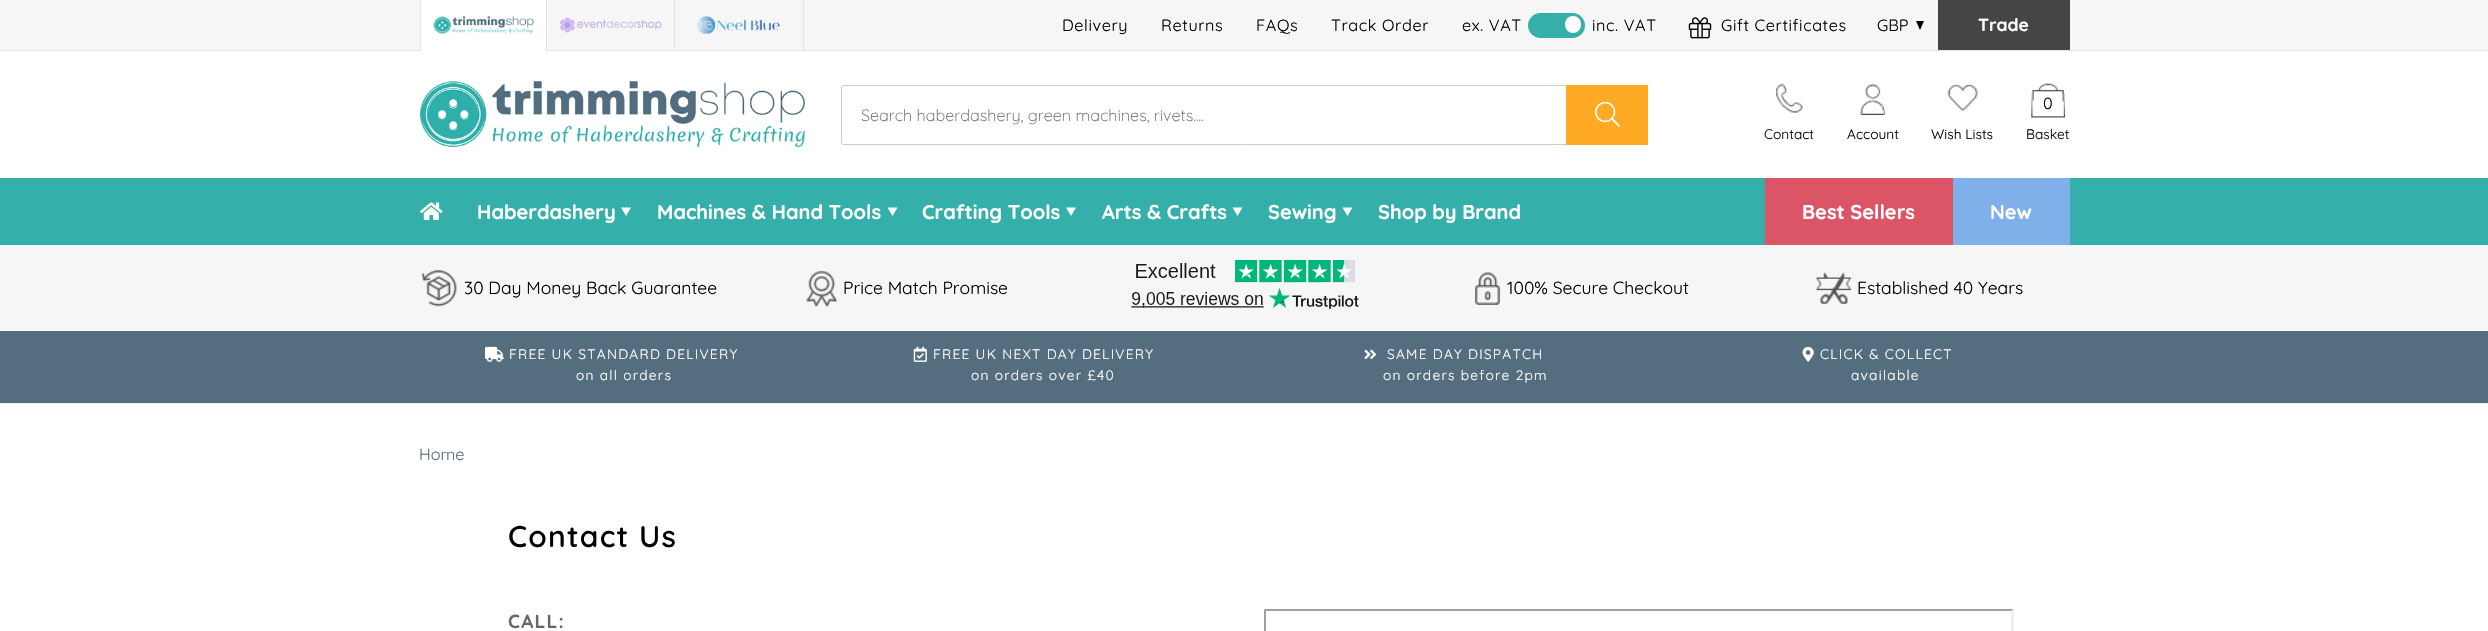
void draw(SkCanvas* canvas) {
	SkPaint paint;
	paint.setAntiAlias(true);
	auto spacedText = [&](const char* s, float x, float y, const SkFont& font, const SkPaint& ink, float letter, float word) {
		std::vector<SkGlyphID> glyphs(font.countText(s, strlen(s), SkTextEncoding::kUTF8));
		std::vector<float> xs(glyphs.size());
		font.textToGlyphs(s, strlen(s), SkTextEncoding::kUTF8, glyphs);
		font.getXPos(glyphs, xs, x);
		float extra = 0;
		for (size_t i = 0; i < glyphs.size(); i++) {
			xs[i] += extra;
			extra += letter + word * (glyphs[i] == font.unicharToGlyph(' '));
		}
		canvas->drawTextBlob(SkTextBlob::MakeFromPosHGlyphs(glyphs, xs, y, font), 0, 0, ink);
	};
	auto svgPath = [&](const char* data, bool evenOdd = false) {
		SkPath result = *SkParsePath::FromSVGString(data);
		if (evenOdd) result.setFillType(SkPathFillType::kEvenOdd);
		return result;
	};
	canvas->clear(0xffffffff);
	paint.setColor(0xfff6f6f6);
	canvas->drawRect(SkRect::MakeXYWH(0, 0, 2488, 50), paint);
	paint.setColor(0xffe4e4e4);
	canvas->drawRect(SkRect::MakeXYWH(0, 50, 2488, 1), paint);
	paint.setColor(0xffffffff);
	canvas->drawRect(SkRect::MakeXYWH(421, 0, 127, 51), paint);
	paint.setColor(0xffe3e3e3);
	canvas->drawRect(SkRect::MakeXYWH(546, 0, 1, 51), paint);
	canvas->drawRect(SkRect::MakeXYWH(420, 0, 1, 51), paint);
	canvas->drawImageRect(SkImages::DeferredFromEncodedData(SkData::MakeFromFileName("img1.png")), SkRect::MakeXYWH(433, 16, 101, 18), SkSamplingOptions());
	canvas->drawRect(SkRect::MakeXYWH(674, 0, 1, 50), paint);
	canvas->drawImageRect(SkImages::DeferredFromEncodedData(SkData::MakeFromFileName("img2.png")), SkRect::MakeXYWH(560, 17, 102, 16), SkSamplingOptions());
	canvas->drawRect(SkRect::MakeXYWH(803, 0, 1, 50), paint);
	canvas->drawImageRect(SkImages::DeferredFromEncodedData(SkData::MakeFromFileName("img3.png")), SkRect::MakeXYWH(697, 16, 83, 18), SkSamplingOptions());
	SkFont f1(fontMgr->matchFamilyStyle("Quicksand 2", SkFontStyle(300, SkFontStyle::kNormal_Width, SkFontStyle::kUpright_Slant)), 16.25);
	f1.setSubpixel(true);
	paint.setColor(0xff000000);
	spacedText("Delivery", 1062, 31, f1, paint, 0.6, 0);
	spacedText("Returns", 1161, 31, f1, paint, 0.6, 0);
	spacedText("FAQs", 1256, 31, f1, paint, 0.6, 0);
	spacedText("Track Order", 1331, 31, f1, paint, 0.6, 0);
	spacedText("ex. VAT", 1462, 31, f1, paint, 0.6, 0);
	paint.setColor(0xff34afaa);
	canvas->drawRoundRect(SkRect::MakeXYWH(1528, 13, 57, 25), 12.5, 12.5, paint);
	paint.setColor(0xffffffff);
	canvas->drawRoundRect(SkRect::MakeXYWH(1565, 16, 16, 17), 8, 8, paint);
	paint.setColor(0xff000000);
	spacedText("inc. VAT", 1592, 31, f1, paint, 0.6, 0);
	canvas->drawImageRect(SkImages::DeferredFromEncodedData(SkData::MakeFromFileName("img4.png")), SkRect::MakeXYWH(1688, 17, 24, 22), SkSamplingOptions());
	spacedText("Gift Certificates", 1721, 31, f1, paint, 0.6, 0);
	canvas->drawString("GBP", 1877, 31, f1, paint);
	canvas->drawPath(svgPath("M1916 21H1924L1920 30Z"), paint);
	paint.setColor(0xff454545);
	canvas->drawRect(SkRect::MakeXYWH(1938, 0, 132, 50), paint);
	SkFont f2(fontMgr->matchFamilyStyle("Quicksand", SkFontStyle::Bold()), 17.5);
	f2.setSubpixel(true);
	paint.setColor(0xffffffff);
	canvas->drawString("Trade", 1978, 31, f2, paint);
	canvas->drawImageRect(SkImages::DeferredFromEncodedData(SkData::MakeFromFileName("img5.png")), SkRect::MakeXYWH(420, 81, 385, 67), SkSamplingOptions());
	paint.setStroke(true);
	paint.setStrokeWidth(1);
	paint.setColor(0xffcccccc);
	canvas->drawRoundRect(SkRect::MakeXYWH(841.5, 85.5, 806, 59), 2, 2, paint);
	SkFont f3(fontMgr->matchFamilyStyle("Quicksand", SkFontStyle(300, SkFontStyle::kNormal_Width, SkFontStyle::kUpright_Slant)), 16.25);
	f3.setSubpixel(true);
	paint.setStroke(false);
	paint.setColor(0xff666666);
	canvas->drawString("Search haberdashery, green machines, rivets....", 861, 121, f3, paint);
	paint.setColor(0xfffeaa24);
	canvas->drawRect(SkRect::MakeXYWH(1566, 85, 82, 60), paint);
	canvas->drawImageRect(SkImages::DeferredFromEncodedData(SkData::MakeFromFileName("img6.png")), SkRect::MakeXYWH(1595, 101, 25, 26), SkSamplingOptions());
	canvas->drawImageRect(SkImages::DeferredFromEncodedData(SkData::MakeFromFileName("img7.png")), SkRect::MakeXYWH(1776, 83, 27, 30), SkSamplingOptions());
	SkFont f4(fontMgr->matchFamilyStyle("Quicksand 2", SkFontStyle(300, SkFontStyle::kNormal_Width, SkFontStyle::kUpright_Slant)), 13.75);
	f4.setSubpixel(true);
	paint.setColor(0xff000000);
	canvas->drawString("Contact", 1764, 139, f4, paint);
	canvas->drawImageRect(SkImages::DeferredFromEncodedData(SkData::MakeFromFileName("img8.png")), SkRect::MakeXYWH(1860, 83, 25, 32), SkSamplingOptions());
	canvas->drawString("Account", 1847, 139, f4, paint);
	canvas->drawImageRect(SkImages::DeferredFromEncodedData(SkData::MakeFromFileName("img9.png")), SkRect::MakeXYWH(1947, 84, 31, 28), SkSamplingOptions());
	canvas->drawString("Wish Lists", 1931, 139, f4, paint);
	canvas->drawImageRect(SkImages::DeferredFromEncodedData(SkData::MakeFromFileName("img10.png")), SkRect::MakeXYWH(2031, 83, 34, 35), SkSamplingOptions());
	canvas->drawString("0", 2043, 109, f1, paint);
	canvas->drawString("Basket", 2026, 139, f4, paint);
	paint.setColor(0xff34afaa);
	canvas->drawRect(SkRect::MakeXYWH(0, 178, 2488, 67), paint);
	canvas->drawImageRect(SkImages::DeferredFromEncodedData(SkData::MakeFromFileName("img11.png")), SkRect::MakeXYWH(420, 202, 23, 18), SkSamplingOptions());
	SkFont f5(fontMgr->matchFamilyStyle("Quicksand", SkFontStyle::Bold()), 20);
	f5.setSubpixel(true);
	paint.setColor(0xffffffff);
	canvas->drawString("Haberdashery", 477, 219, f5, paint);
	canvas->drawPath(svgPath("M621 207.5H631L626 216Z"), paint);
	canvas->drawString("Machines & Hand Tools", 657, 219, f5, paint);
	canvas->drawPath(svgPath("M887.5 207.5H897.5L892.5 216Z"), paint);
	canvas->drawString("Crafting Tools", 922, 219, f5, paint);
	canvas->drawPath(svgPath("M1066 207.5H1076L1071 216Z"), paint);
	canvas->drawString("Arts & Crafts", 1102, 219, f5, paint);
	canvas->drawPath(svgPath("M1232.5 207.5H1242.5L1237.5 216Z"), paint);
	canvas->drawString("Sewing", 1268, 219, f5, paint);
	canvas->drawPath(svgPath("M1342.5 207.5H1352.5L1347.5 216Z"), paint);
	canvas->drawString("Shop by Brand", 1378, 219, f5, paint);
	paint.setColor(0xffdb5567);
	canvas->drawRect(SkRect::MakeXYWH(1765, 178, 188, 67), paint);
	paint.setColor(0xffffffff);
	canvas->drawString("Best Sellers", 1802, 219, f5, paint);
	paint.setColor(0xff7fb0e9);
	canvas->drawRect(SkRect::MakeXYWH(1953, 178, 117, 67), paint);
	paint.setColor(0xffffffff);
	canvas->drawString("New", 1990, 219, f5, paint);
	paint.setColor(0xfff6f6f6);
	canvas->drawRect(SkRect::MakeXYWH(0, 245, 2488, 86), paint);
	canvas->drawImageRect(SkImages::DeferredFromEncodedData(SkData::MakeFromFileName("img12.png")), SkRect::MakeXYWH(421, 270, 36, 37), SkSamplingOptions());
	SkFont f6(fontMgr->matchFamilyStyle("Quicksand 2", SkFontStyle(300, SkFontStyle::kNormal_Width, SkFontStyle::kUpright_Slant)), 17.5);
	f6.setSubpixel(true);
	paint.setColor(0xff000000);
	canvas->drawString("30 Day Money Back Guarantee", 464, 294, f6, paint);
	canvas->drawImageRect(SkImages::DeferredFromEncodedData(SkData::MakeFromFileName("img13.png")), SkRect::MakeXYWH(806, 270, 32, 37), SkSamplingOptions());
	canvas->drawString("Price Match Promise", 843, 294, f6, paint);
	canvas->drawImageRect(SkImages::DeferredFromEncodedData(SkData::MakeFromFileName("img14.png")), SkRect::MakeXYWH(1131, 260, 228, 49), SkSamplingOptions());
	canvas->drawImageRect(SkImages::DeferredFromEncodedData(SkData::MakeFromFileName("img15.png")), SkRect::MakeXYWH(1475, 272, 25, 33), SkSamplingOptions());
	canvas->drawString("100% Secure Checkout", 1507, 294, f6, paint);
	canvas->drawImageRect(SkImages::DeferredFromEncodedData(SkData::MakeFromFileName("img16.png")), SkRect::MakeXYWH(1816, 272, 36, 32), SkSamplingOptions());
	canvas->drawString("Established 40 Years", 1857, 294, f6, paint);
	paint.setColor(0xff546e7f);
	canvas->drawRect(SkRect::MakeXYWH(0, 331, 2488, 72), paint);
	paint.setColor(0xffededed);
	canvas->drawRect(SkRect::MakeXYWH(0, 403, 2488, 1), paint);
	canvas->drawImageRect(SkImages::DeferredFromEncodedData(SkData::MakeFromFileName("img17.png")), SkRect::MakeXYWH(485, 346, 19, 16), SkSamplingOptions());
	paint.setColor(0xffffffff);
	spacedText("FREE UK STANDARD DELIVERY", 509, 359, f4, paint, 1.25, 0);
	spacedText("on all orders", 576, 380, f4, paint, 1.25, 0);
	canvas->drawImageRect(SkImages::DeferredFromEncodedData(SkData::MakeFromFileName("img18.png")), SkRect::MakeXYWH(913, 346, 14, 16), SkSamplingOptions());
	spacedText("FREE UK NEXT DAY DELIVERY", 933, 359, f4, paint, 1.25, 0);
	spacedText("on orders over £40", 971, 380, f4, paint, 1.25, 0);
	canvas->drawImageRect(SkImages::DeferredFromEncodedData(SkData::MakeFromFileName("img19.png")), SkRect::MakeXYWH(1364, 349, 13, 10), SkSamplingOptions());
	spacedText("SAME DAY DISPATCH", 1387, 359, f4, paint, 1.25, 0);
	spacedText("on orders before 2pm", 1383, 380, f4, paint, 1.25, 0);
	canvas->drawImageRect(SkImages::DeferredFromEncodedData(SkData::MakeFromFileName("img20.png")), SkRect::MakeXYWH(1802, 346, 12, 16), SkSamplingOptions());
	spacedText("CLICK & COLLECT", 1820, 359, f4, paint, 1.25, 0);
	spacedText("available", 1851, 380, f4, paint, 1.25, 0);
	paint.setColor(0xff546e7f);
	canvas->drawString("Home", 419, 460, f1, paint);
	SkFont f7(fontMgr->matchFamilyStyle("Quicksand", SkFontStyle(600, SkFontStyle::kNormal_Width, SkFontStyle::kUpright_Slant)), 30);
	f7.setSubpixel(true);
	paint.setColor(0xff000000);
	spacedText("Contact Us", 508, 547, f7, paint, 1.25, 0);
	SkFont f8(fontMgr->matchFamilyStyle("Quicksand", SkFontStyle::Bold()), 19);
	f8.setSubpixel(true);
	paint.setColor(0xff666666);
	spacedText("CALL:", 508, 628, f8, paint, 1.25, 0);
	paint.setColor(0xff9f9f9f);
	canvas->drawPath(svgPath("M1264 609H2014L2011 611H1266Z"), paint);
	canvas->drawPath(svgPath("M1264 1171V609L1266 611V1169Z"), paint);
	paint.setColor(0xffeeeeee);
	canvas->drawPath(svgPath("M2014 609V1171L2011 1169V611Z"), paint);
}
